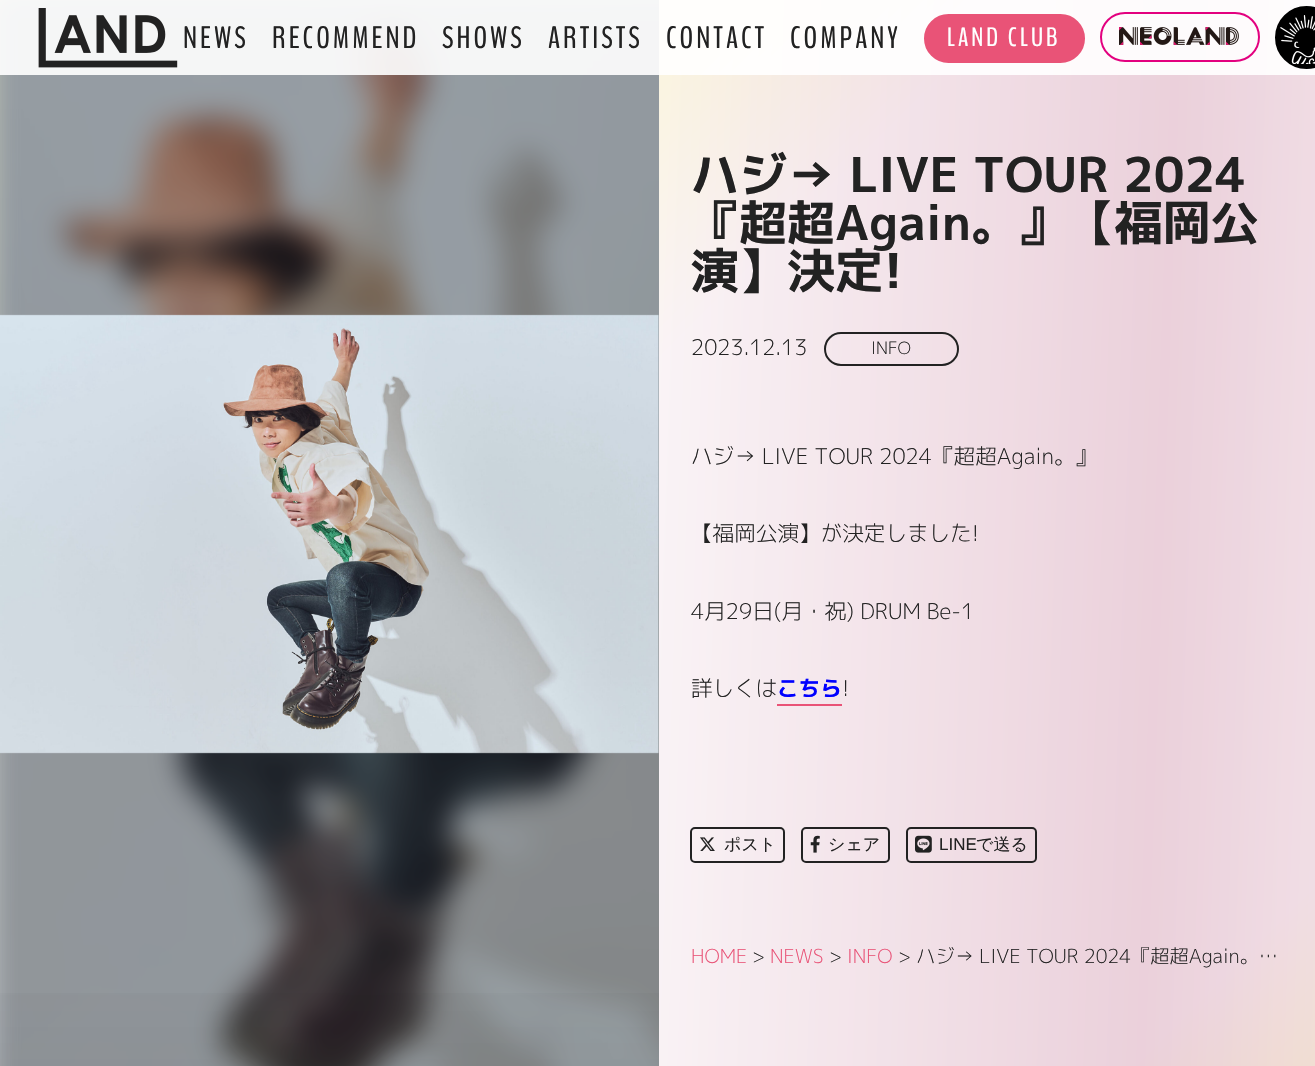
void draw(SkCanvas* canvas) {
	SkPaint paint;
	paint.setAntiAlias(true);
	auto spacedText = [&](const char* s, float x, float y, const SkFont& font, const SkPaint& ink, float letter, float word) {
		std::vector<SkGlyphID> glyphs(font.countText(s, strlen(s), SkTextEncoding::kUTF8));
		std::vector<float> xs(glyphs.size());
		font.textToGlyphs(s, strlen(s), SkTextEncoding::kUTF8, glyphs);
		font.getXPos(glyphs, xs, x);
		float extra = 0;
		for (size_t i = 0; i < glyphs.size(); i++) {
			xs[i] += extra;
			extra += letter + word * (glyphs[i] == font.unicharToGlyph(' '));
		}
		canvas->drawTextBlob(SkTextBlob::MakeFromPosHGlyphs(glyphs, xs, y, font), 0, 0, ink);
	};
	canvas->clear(0xffffffff);
	{
		const SkColor colors[] = {0xffffffff, 0xffe2bccb, 0xffffffff, 0xffffffff};
		const float stops[] = {0, 0.33, 0.71, 0.95};
		const SkPoint ends[] = {{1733, 724}, {-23, 663}};
		paint.setShader(SkGradientShader::MakeLinear(ends, colors, stops, 4, SkTileMode::kClamp));
		paint.setAlpha(255);
	}
	canvas->drawRect(SkRect::MakeXYWH(498, 0, 817, 1066), paint);
	{
		const SkColor colors[] = {0x4dffff00, 0x4dffffff, 0x4dffffff, 0x4dffff00};
		const float stops[] = {0, 0.33, 0.71, 0.95};
		const SkPoint ends[] = {{81, -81}, {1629, 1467}};
		paint.setShader(SkGradientShader::MakeLinear(ends, colors, stops, 4, SkTileMode::kClamp));
		paint.setAlpha(255);
	}
	canvas->drawRect(SkRect::MakeXYWH(0, 0, 1315, 1066), paint);
	canvas->drawImageRect(SkImages::DeferredFromEncodedData(SkData::MakeFromFileName("img4.png")), SkRect::MakeXYWH(0, 0, 659, 1066), SkSamplingOptions());
	paint.setStroke(true);
	paint.setStrokeWidth(2);
	paint.setShader(nullptr);
	paint.setColor(0xff222222);
	canvas->drawRoundRect(SkRect::MakeXYWH(691, 828, 93, 34), 4, 4, paint);
	canvas->drawImageRect(SkImages::DeferredFromEncodedData(SkData::MakeFromFileName("img6.png")), SkRect::MakeXYWH(700, 837, 15, 14), SkSamplingOptions());
	canvas->save();
	canvas->clipRect(SkRect::MakeXYWH(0, 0, 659, 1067));
	paint.setStroke(false);
	paint.setColor(0x4d000000);
	paint.setMaskFilter(SkMaskFilter::MakeBlur(kNormal_SkBlurStyle, 15));
	canvas->drawRect(SkRect::MakeXYWH(-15, -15, 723, 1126), paint);
	paint.setMaskFilter(nullptr);
	canvas->restore();
	paint.setColor(0xe6ffffff);
	canvas->drawRect(SkRect::MakeXYWH(0, 0, 1315, 75), paint);
	canvas->drawImageRect(SkImages::DeferredFromEncodedData(SkData::MakeFromFileName("img1.png")), SkRect::MakeXYWH(38, 8, 140, 60), SkSamplingOptions());
	SkFont f1(fontMgr->matchFamilyStyle("BenchNine", SkFontStyle::Normal()), 31);
	f1.setSubpixel(true);
	paint.setColor(0xff222222);
	spacedText("NEWS", 183, 48, f1, paint, 3, 0);
	spacedText("RECOMMEND", 272, 48, f1, paint, 3, 0);
	spacedText("SHOWS", 442, 48, f1, paint, 3, 0);
	spacedText("ARTISTS", 548, 48, f1, paint, 3, 0);
	spacedText("CONTACT", 666, 48, f1, paint, 3, 0);
	spacedText("COMPANY", 790, 48, f1, paint, 3, 0);
	paint.setColor(0xffe95377);
	canvas->drawRoundRect(SkRect::MakeXYWH(925, 15, 159, 47), 23.5, 23.5, paint);
	paint.setStroke(true);
	canvas->drawRoundRect(SkRect::MakeXYWH(925, 15, 159, 47), 23.5, 23.5, paint);
	SkFont f2(fontMgr->matchFamilyStyle("BenchNine", SkFontStyle::Normal()), 26.5);
	f2.setSubpixel(true);
	paint.setStroke(false);
	paint.setColor(0xffffffff);
	spacedText("LAND CLUB", 947, 46, f2, paint, 3, 0);
	paint.setStroke(true);
	paint.setColor(0xffe3007f);
	canvas->drawRoundRect(SkRect::MakeXYWH(1101, 13, 158, 48), 24, 24, paint);
	canvas->drawImageRect(SkImages::DeferredFromEncodedData(SkData::MakeFromFileName("img2.png")), SkRect::MakeXYWH(1119, 27, 120, 18), SkSamplingOptions());
	paint.setStroke(false);
	paint.setColor(0xff000000);
	canvas->drawCircle(1306.5, 37.5, 30.5, paint);
	paint.setStroke(true);
	canvas->drawCircle(1306.5, 37.5, 30.5, paint);
	canvas->drawImageRect(SkImages::DeferredFromEncodedData(SkData::MakeFromFileName("img3.png")), SkRect::MakeXYWH(1280, 15, 35, 49), SkSamplingOptions());
	canvas->drawImageRect(SkImages::DeferredFromEncodedData(SkData::MakeFromFileName("img5.png")), SkRect::MakeXYWH(0, 314, 659, 440), SkSamplingOptions());
	paint.setStroke(false);
	{
		const SkColor colors[] = {0x0a000000, 0x00000000, 0x00000000};
		const float stops[] = {0, 0.15, 1};
		const SkPoint ends[] = {{329, 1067}, {329, 0}};
		paint.setShader(SkGradientShader::MakeLinear(ends, colors, stops, 3, SkTileMode::kClamp));
		paint.setAlpha(255);
	}
	canvas->drawRect(SkRect::MakeXYWH(0, 993, 659, 73), paint);
	SkFont f3(fontMgr->matchFamilyStyle("M PLUS 1p", SkFontStyle::Bold()), 48);
	f3.setSubpixel(true);
	paint.setShader(nullptr);
	paint.setColor(0xff222222);
	canvas->drawString("ハジ→ LIVE TOUR 2024", 691, 192, f3, paint);
	canvas->drawString("『超超Again。』【福岡公", 691, 240, f3, paint);
	canvas->drawString("演】決定!", 691, 288, f3, paint);
	SkFont f4(fontMgr->matchFamilyStyle("M PLUS 1p", SkFontStyle(300, SkFontStyle::kNormal_Width, SkFontStyle::kUpright_Slant)), 21.6);
	f4.setSubpixel(true);
	canvas->drawString("2023.12.13", 691, 355, f4, paint);
	paint.setStroke(true);
	canvas->drawRoundRect(SkRect::MakeXYWH(825, 333, 133, 32), 16, 16, paint);
	SkFont f5(fontMgr->matchFamilyStyle("M PLUS 1p", SkFontStyle(300, SkFontStyle::kNormal_Width, SkFontStyle::kUpright_Slant)), 17);
	f5.setSubpixel(true);
	paint.setStroke(false);
	canvas->drawString("INFO", 871, 354, f5, paint);
	canvas->drawString("ハジ→ LIVE TOUR 2024『超超Again。』", 691, 464, f4, paint);
	canvas->drawString("【福岡公演】が決定しました!", 691, 541, f4, paint);
	canvas->drawString("4月29日(月・祝) DRUM Be-1", 691, 619, f4, paint);
	canvas->drawString("詳しくは", 691, 696, f4, paint);
	SkFont f6(fontMgr->matchFamilyStyle("M PLUS 1p", SkFontStyle::Bold()), 21.6);
	f6.setSubpixel(true);
	paint.setColor(0xff0000ff);
	canvas->drawString("こちら", 777, 696, f6, paint);
	paint.setColor(0xffe95377);
	canvas->drawRect(SkRect::MakeXYWH(777, 704, 65, 2), paint);
	paint.setColor(0xff222222);
	canvas->drawString("!", 842, 696, f4, paint);
	SkFont f7(fontMgr->matchFamilyStyle("WenQuanYi Zen Hei", SkFontStyle(500, SkFontStyle::kNormal_Width, SkFontStyle::kUpright_Slant)), 17);
	f7.setSubpixel(true);
	canvas->drawString("ポスト", 724, 850, f7, paint);
	paint.setStroke(true);
	canvas->drawRoundRect(SkRect::MakeXYWH(802, 828, 87, 34), 4, 4, paint);
	canvas->drawImageRect(SkImages::DeferredFromEncodedData(SkData::MakeFromFileName("img7.png")), SkRect::MakeXYWH(810, 835, 10, 18), SkSamplingOptions());
	paint.setStroke(false);
	canvas->drawString("シェア", 828, 850, f7, paint);
	paint.setStroke(true);
	canvas->drawRoundRect(SkRect::MakeXYWH(907, 828, 129, 34), 4, 4, paint);
	canvas->drawImageRect(SkImages::DeferredFromEncodedData(SkData::MakeFromFileName("img8.png")), SkRect::MakeXYWH(915, 835, 17, 18), SkSamplingOptions());
	SkFont f8(fontMgr->matchFamilyStyle("Liberation Sans", SkFontStyle::Normal()), 17);
	f8.setSubpixel(true);
	paint.setStroke(false);
	canvas->drawString("LINE", 939, 850, f8, paint);
	canvas->drawString("で送る", 976, 850, f7, paint);
	SkFont f9(fontMgr->matchFamilyStyle("M PLUS 1p", SkFontStyle(300, SkFontStyle::kNormal_Width, SkFontStyle::kUpright_Slant)), 19.25);
	f9.setSubpixel(true);
	paint.setColor(0xffe95377);
	canvas->drawString("HOME", 691, 963, f9, paint);
	paint.setColor(0xff222222);
	canvas->drawString(">", 752, 963, f9, paint);
	paint.setColor(0xffe95377);
	canvas->drawString("NEWS", 770, 963, f9, paint);
	paint.setColor(0xff222222);
	canvas->drawString(">", 829, 963, f9, paint);
	paint.setColor(0xffe95377);
	canvas->drawString("INFO", 847, 963, f9, paint);
	paint.setColor(0xff222222);
	canvas->drawString("> ハジ→ LIVE TOUR 2024『超超Again。…", 898, 963, f9, paint);
}
